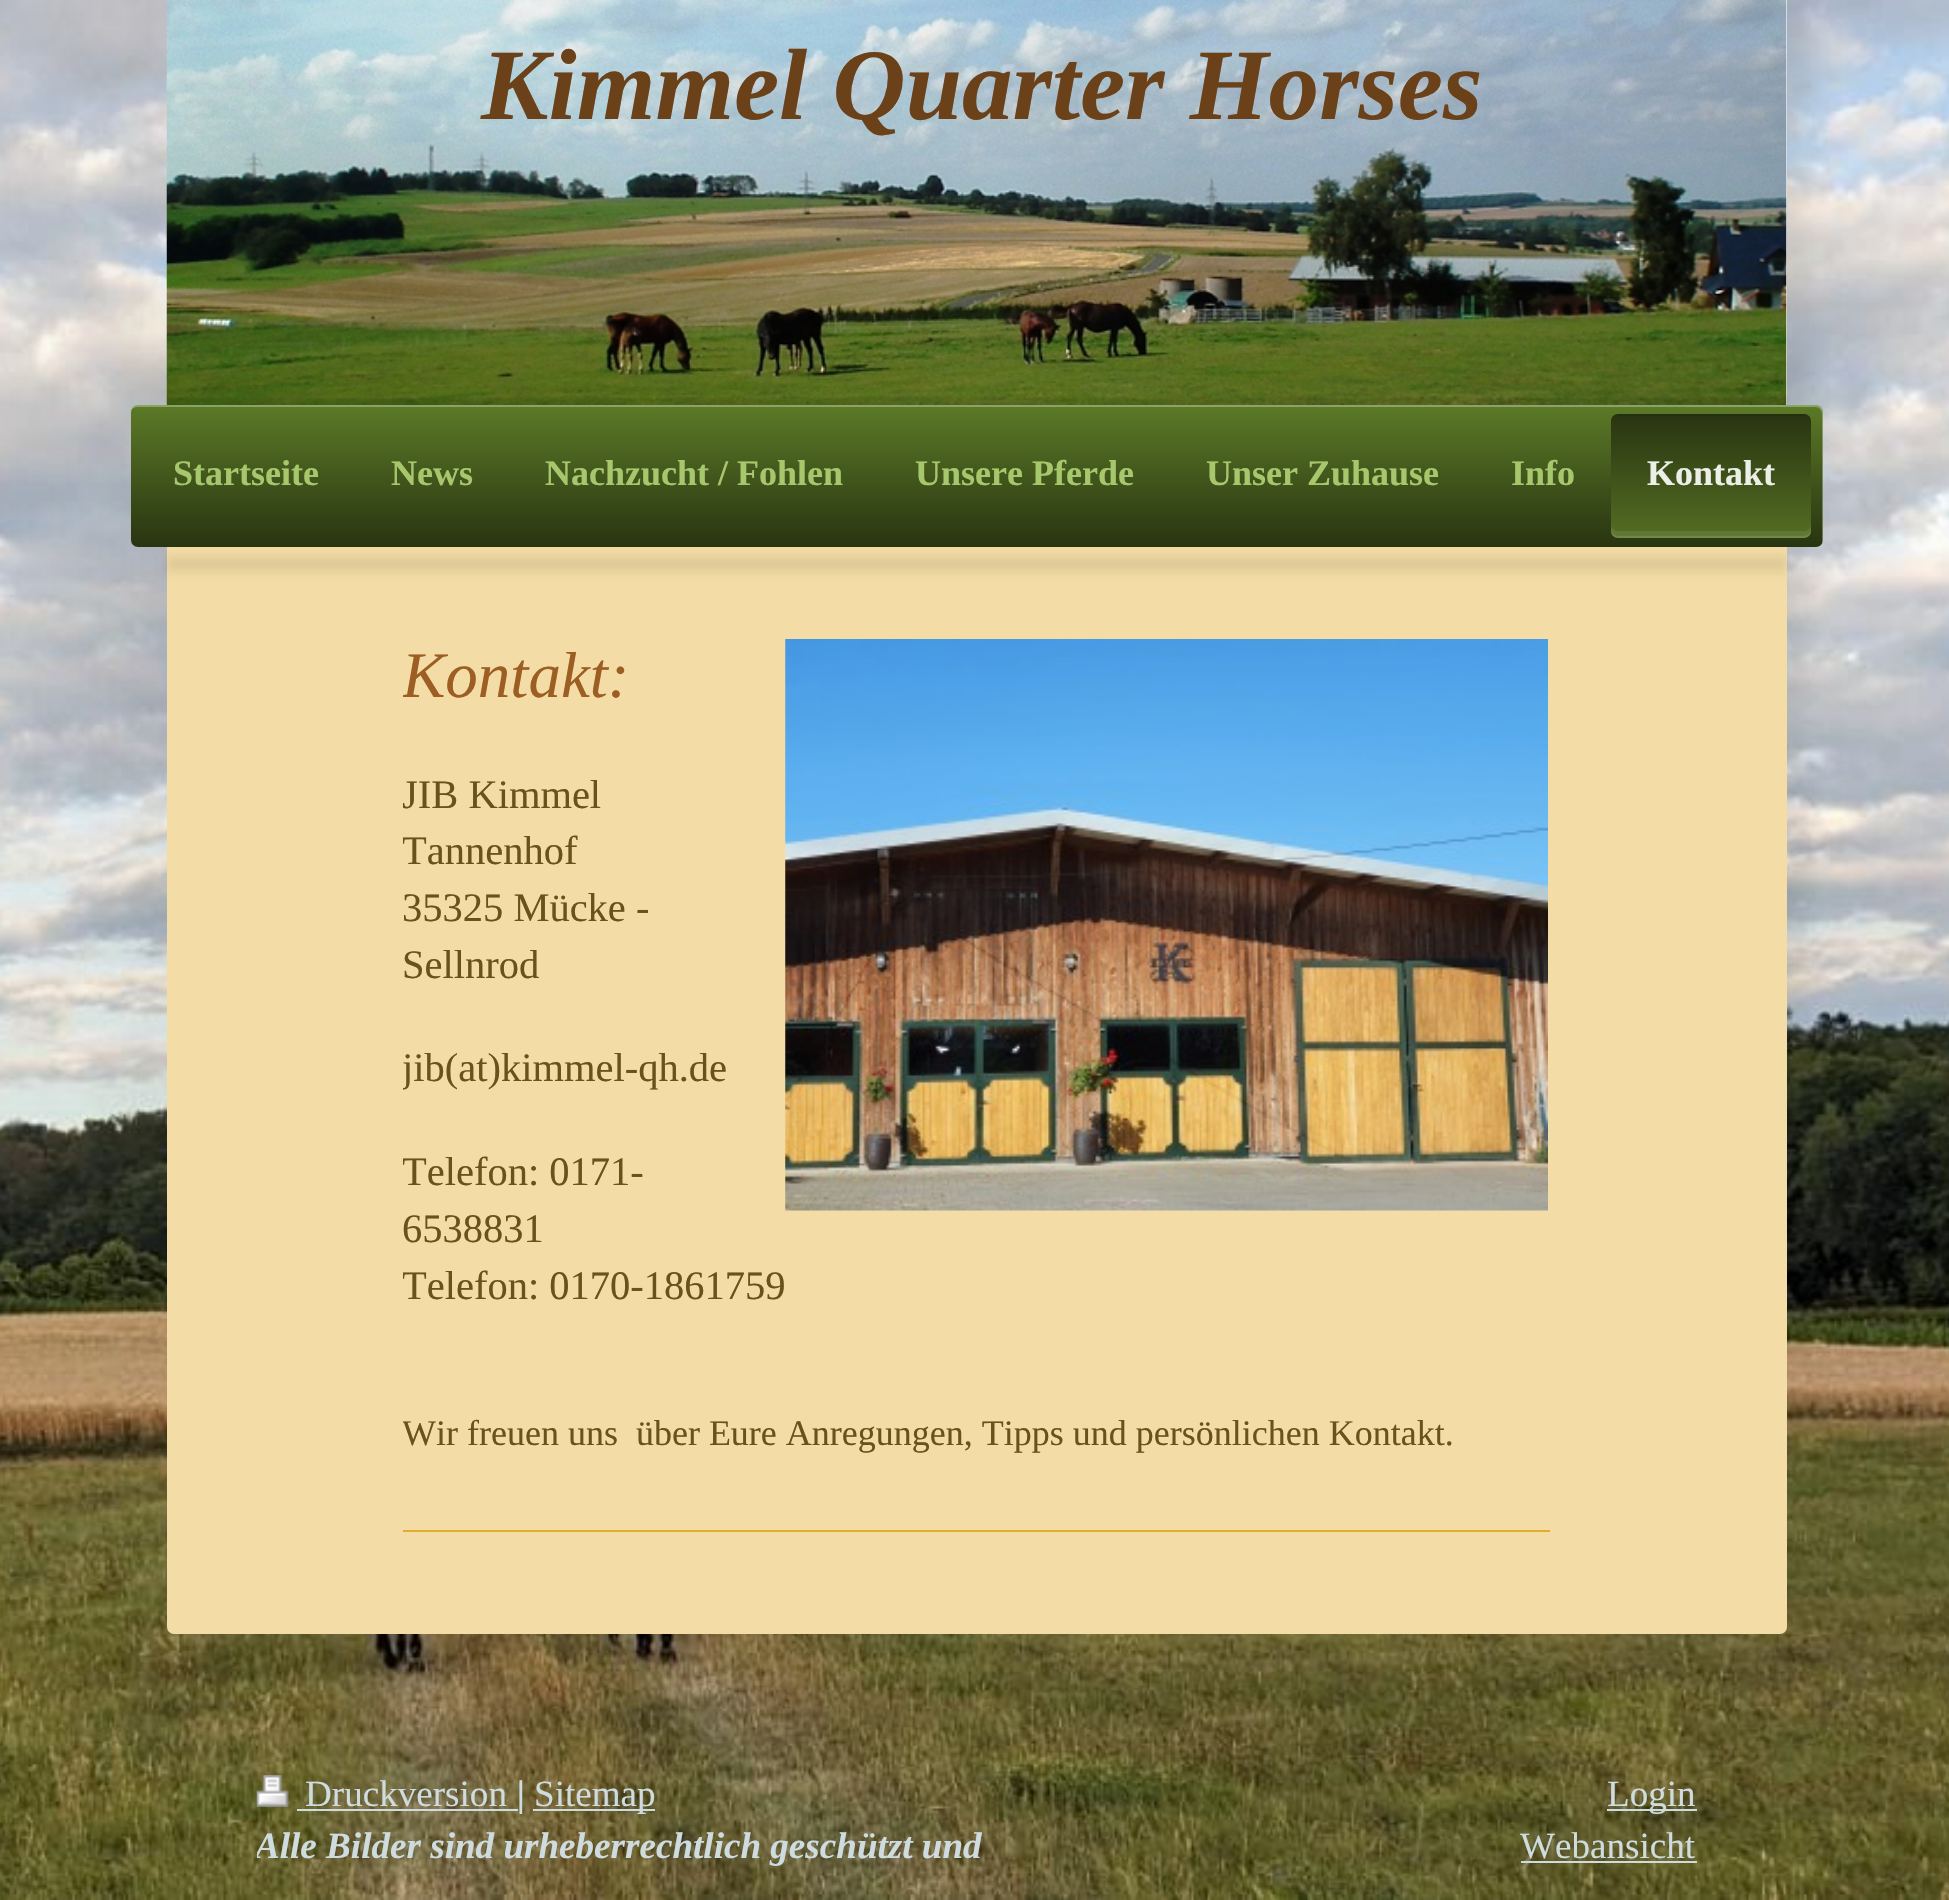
void draw(SkCanvas* canvas) {
	SkPaint paint;
	paint.setAntiAlias(true);
	auto svgPath = [&](const char* data, bool evenOdd = false) {
		SkPath result = *SkParsePath::FromSVGString(data);
		if (evenOdd) result.setFillType(SkPathFillType::kEvenOdd);
		return result;
	};
	canvas->clear(0xffffffff);
	canvas->drawImageRect(SkImages::DeferredFromEncodedData(SkData::MakeFromFileName("img1.png")), SkRect::MakeXYWH(0, 0, 1949, 1900), SkSamplingOptions());
	paint.setColor(0x26000000);
	paint.setMaskFilter(SkMaskFilter::MakeBlur(kNormal_SkBlurStyle, 135));
	canvas->drawRect(SkRect::MakeXYWH(189, 0, 225, 1350), paint);
	paint.setMaskFilter(nullptr);
	paint.setColor(0x14000000);
	paint.setMaskFilter(SkMaskFilter::MakeBlur(kNormal_SkBlurStyle, 11));
	canvas->drawRect(SkRect::MakeXYWH(1584, 0, 225, 1350), paint);
	paint.setMaskFilter(nullptr);
	paint.setColor(0xffeeeeee);
	canvas->drawRect(SkRect::MakeXYWH(1786, 0, 1, 405), paint);
	canvas->drawImageRect(SkImages::DeferredFromEncodedData(SkData::MakeFromFileName("img2.png")), SkRect::MakeXYWH(166, 0, 1621, 405), SkSamplingOptions());
	SkFont f1(fontMgr->matchFamilyStyle("Liberation Serif", SkFontStyle::BoldItalic()), 101.25);
	f1.setSubpixel(true);
	paint.setColor(0xff6b411a);
	canvas->drawString("Kimmel Quarter Horses", 481, 119, f1, paint);
	paint.setColor(0x14000000);
	paint.setMaskFilter(SkMaskFilter::MakeBlur(kNormal_SkBlurStyle, 1));
	canvas->drawRect(SkRect::MakeXYWH(167, 398, 1620, 70), paint);
	paint.setMaskFilter(nullptr);
	paint.setColor(0xfff3dca5);
	canvas->drawRoundRect(SkRect::MakeXYWH(167, 540, 1620, 1094), 7, 7, paint);
	{
		const SkColor colors[] = {0xff5c7a27, 0xff283411};
		const float stops[] = {0, 1};
		const SkPoint ends[] = {{131, 405}, {131, 547}};
		paint.setShader(SkGradientShader::MakeLinear(ends, colors, stops, 2, SkTileMode::kClamp));
		paint.setAlpha(255);
	}
	canvas->drawRoundRect(SkRect::MakeXYWH(131, 405, 1692, 142), 7, 7, paint);
	paint.setShader(nullptr);
	paint.setColor(0x4dffffff);
	canvas->drawPath(svgPath("M137 407H1816C1819 407 1822 410 1822 414V544C1823 543 1823 541 1823 540V412C1823 408 1820 405 1816 405H138C135 405 132 407 131 410C133 408 135 407 137 407Z"), paint);
	SkFont f2(fontMgr->matchFamilyStyle("Liberation Serif", SkFontStyle::Bold()), 36);
	f2.setSubpixel(true);
	paint.setColor(0xffa7c76d);
	canvas->drawString("Startseite", 173, 485, f2, paint);
	canvas->drawString("News", 391, 485, f2, paint);
	canvas->drawString("Nachzucht / Fohlen", 545, 485, f2, paint);
	canvas->drawString("Unsere Pferde", 915, 485, f2, paint);
	canvas->drawString("Unser Zuhause", 1206, 485, f2, paint);
	canvas->drawString("Info", 1511, 485, f2, paint);
	{
		const SkColor colors[] = {0xff546e23, 0xff283411};
		const float stops[] = {0, 1};
		const SkPoint ends[] = {{1611, 538}, {1611, 414}};
		paint.setShader(SkGradientShader::MakeLinear(ends, colors, stops, 2, SkTileMode::kClamp));
		paint.setAlpha(255);
	}
	canvas->drawRoundRect(SkRect::MakeXYWH(1611, 414, 200, 124), 7, 7, paint);
	paint.setShader(nullptr);
	paint.setColor(0x1a000000);
	canvas->drawPath(svgPath("M1618 416H1804C1808 416 1811 419 1811 423V421C1811 417 1808 414 1804 414H1618C1614 414 1611 417 1611 421V423C1611 419 1614 416 1618 416Z"), paint);
	paint.setColor(0x14ffffff);
	canvas->drawPath(svgPath("M1611 524V531C1611 535 1614 538 1618 538H1804C1808 538 1811 535 1811 531V524C1811 528 1808 531 1804 531H1618C1614 531 1611 528 1611 524Z"), paint);
	paint.setColor(0x1affffff);
	canvas->drawPath(svgPath("M1611 529V531C1611 535 1614 538 1618 538H1804C1808 538 1811 535 1811 531V529C1811 532 1808 536 1804 536H1618C1614 536 1611 532 1611 529Z"), paint);
	paint.setColor(0xffeceee8);
	canvas->drawString("Kontakt", 1647, 485, f2, paint);
	paint.setColor(0x14000000);
	paint.setMaskFilter(SkMaskFilter::MakeBlur(kNormal_SkBlurStyle, 4.5));
	canvas->drawRect(SkRect::MakeXYWH(167, 556, 1620, 16), paint);
	paint.setMaskFilter(nullptr);
	canvas->drawImageRect(SkImages::DeferredFromEncodedData(SkData::MakeFromFileName("img3.png")), SkRect::MakeXYWH(785, 639, 763, 572), SkSamplingOptions());
	canvas->save();
	canvas->clipRect(SkRect::MakeXYWH(403, 630, 1147, 830));
	SkFont f3(fontMgr->matchFamilyStyle("Liberation Serif", SkFontStyle::Italic()), 65);
	f3.setSubpixel(true);
	paint.setColor(0xff9d5e23);
	canvas->drawString("Kontakt:", 402, 697, f3, paint);
	SkFont f4(fontMgr->matchFamilyStyle("Liberation Serif", SkFontStyle::Normal()), 40.5);
	f4.setSubpixel(true);
	paint.setColor(0xff69521b);
	canvas->drawString("JIB Kimmel", 402, 808, f4, paint);
	canvas->drawString("Tannenhof", 402, 864, f4, paint);
	canvas->restore();
	canvas->drawString("35325 Mücke -", 402, 921, f4, paint);
	canvas->drawString("Sellnrod", 402, 978, f4, paint);
	canvas->save();
	canvas->clipRect(SkRect::MakeXYWH(403, 630, 1147, 830));
	canvas->drawString("jib(at)kimmel-qh.de", 402, 1081, f4, paint);
	canvas->drawString("Telefon: 0171-", 402, 1185, f4, paint);
	canvas->restore();
	canvas->drawString("6538831", 402, 1242, f4, paint);
	canvas->save();
	canvas->clipRect(SkRect::MakeXYWH(403, 630, 1147, 830));
	canvas->drawString("Telefon: 0170-1861759", 402, 1299, f4, paint);
	SkFont f5(fontMgr->matchFamilyStyle("Liberation Serif", SkFontStyle::Normal()), 36);
	f5.setSubpixel(true);
	canvas->drawString("Wir freuen uns  über Eure Anregungen, Tipps und persönlichen Kontakt.", 402, 1445, f5, paint);
	canvas->restore();
	paint.setColor(0xffe3ad2c);
	canvas->drawRect(SkRect::MakeXYWH(403, 1530, 1147, 2), paint);
	paint.setColor(0x1a000000);
	paint.setMaskFilter(SkMaskFilter::MakeBlur(kNormal_SkBlurStyle, 22.5));
	canvas->drawRoundRect(SkRect::MakeXYWH(360, 1694, 1233, 39), 19.5, 19.5, paint);
	paint.setMaskFilter(nullptr);
	canvas->drawImageRect(SkImages::DeferredFromEncodedData(SkData::MakeFromFileName("img4.png")), SkRect::MakeXYWH(256, 1775, 33, 32), SkSamplingOptions());
	SkFont f6(fontMgr->matchFamilyStyle("Liberation Serif", SkFontStyle::Normal()), 37.1);
	f6.setSubpixel(true);
	paint.setColor(0xffcedbdf);
	canvas->drawString("Druckversion", 305, 1806, f6, paint);
	canvas->drawRect(SkRect::MakeXYWH(297, 1809, 221, 2), paint);
	SkFont f7(fontMgr->matchFamilyStyle("Liberation Serif", SkFontStyle::BoldItalic()), 37.1);
	f7.setSubpixel(true);
	canvas->drawString("|", 517, 1806, f7, paint);
	canvas->drawRect(SkRect::MakeXYWH(533, 1809, 122, 2), paint);
	canvas->drawString("Sitemap", 534, 1806, f6, paint);
	canvas->save();
	canvas->clipRect(SkRect::MakeXYWH(257, 1769, 1440, 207));
	canvas->drawString("Alle Bilder sind urheberrechtlich geschützt und", 255, 1858, f7, paint);
	canvas->restore();
	canvas->drawRect(SkRect::MakeXYWH(1607, 1809, 90, 2), paint);
	canvas->drawString("Login", 1607, 1806, f6, paint);
	canvas->drawString("Webansicht", 1520, 1858, f6, paint);
	canvas->drawRect(SkRect::MakeXYWH(1521, 1861, 176, 2), paint);
}
